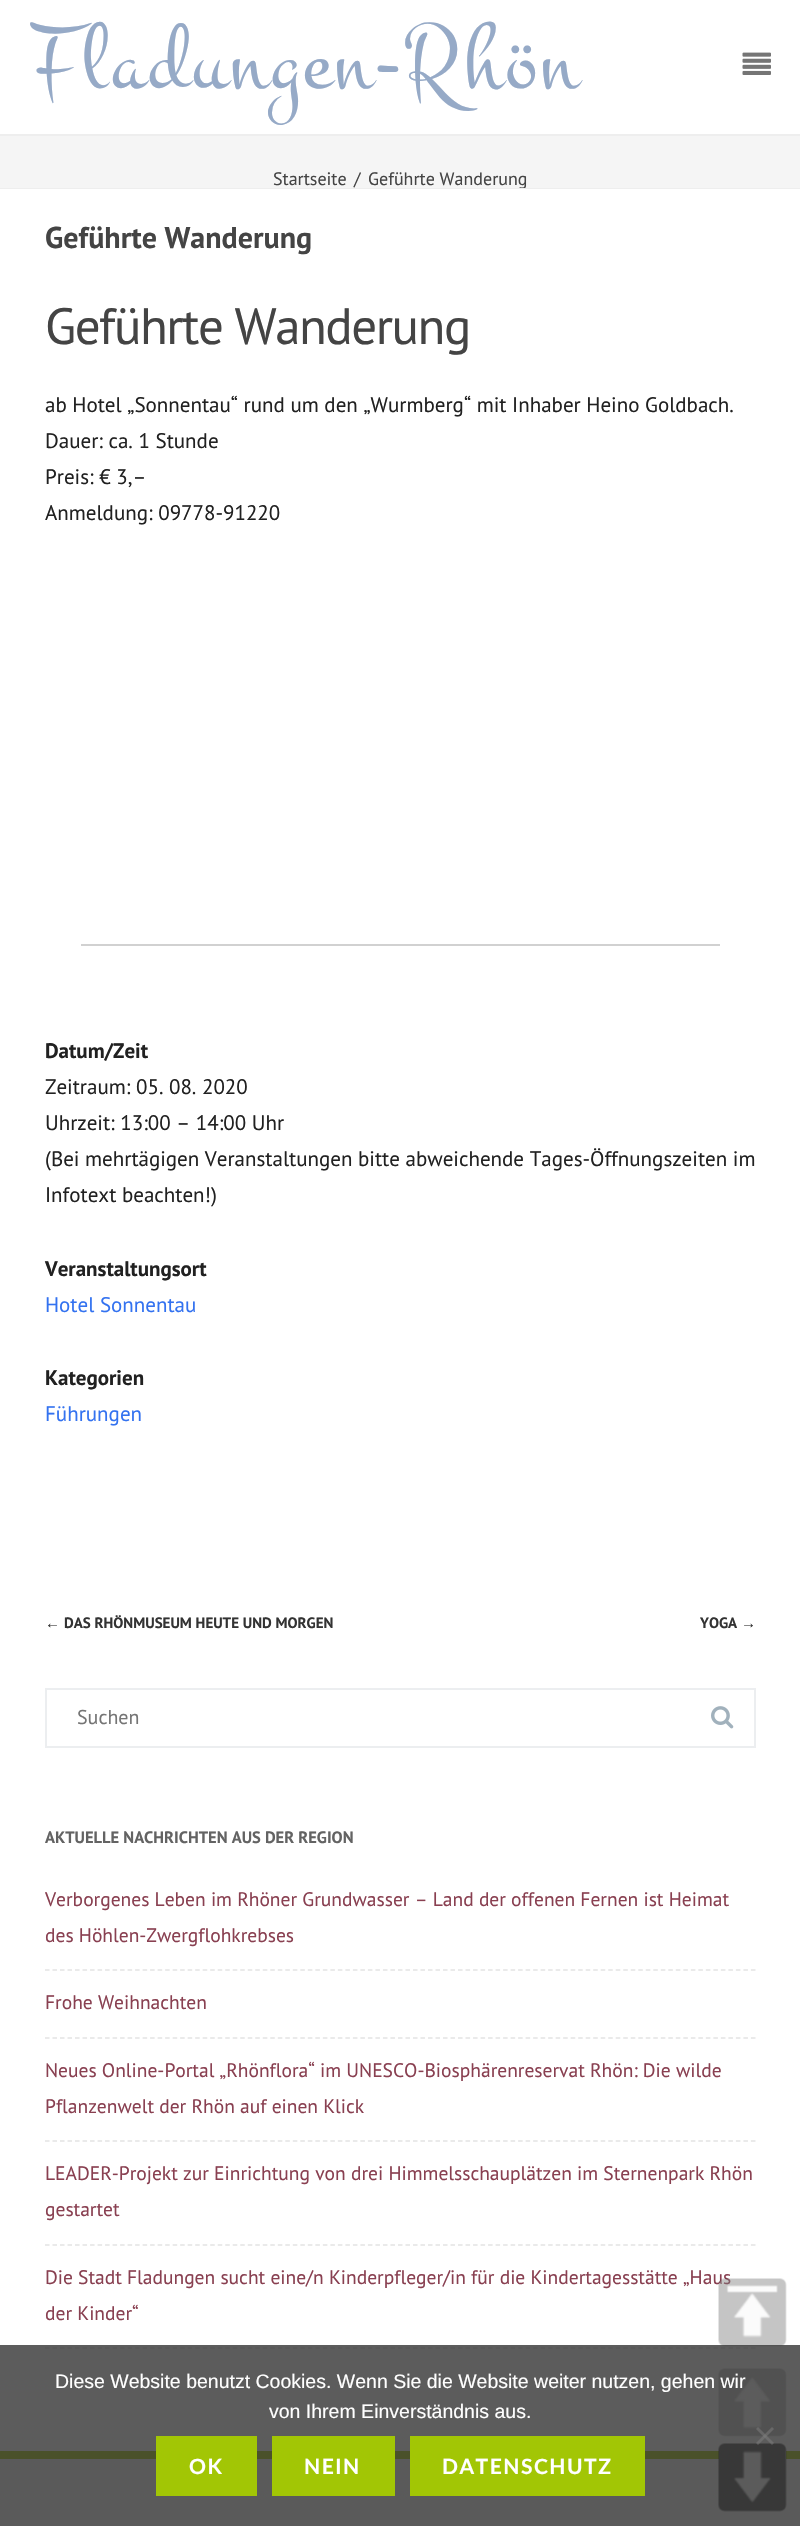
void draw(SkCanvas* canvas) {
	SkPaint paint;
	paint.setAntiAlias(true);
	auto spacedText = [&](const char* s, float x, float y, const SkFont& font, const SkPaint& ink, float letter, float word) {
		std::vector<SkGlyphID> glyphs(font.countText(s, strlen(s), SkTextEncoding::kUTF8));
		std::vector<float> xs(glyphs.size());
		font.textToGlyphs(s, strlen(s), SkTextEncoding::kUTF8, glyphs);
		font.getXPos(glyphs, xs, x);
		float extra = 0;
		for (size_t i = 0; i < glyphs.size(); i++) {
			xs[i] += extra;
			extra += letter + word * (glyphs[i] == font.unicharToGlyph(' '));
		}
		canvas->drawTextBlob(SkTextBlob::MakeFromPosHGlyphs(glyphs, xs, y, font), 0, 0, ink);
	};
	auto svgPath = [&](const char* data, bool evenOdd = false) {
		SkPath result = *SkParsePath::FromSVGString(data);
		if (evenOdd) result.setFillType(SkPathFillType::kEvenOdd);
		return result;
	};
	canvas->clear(0xffffffff);
	SkFont f1(fontMgr->matchFamilyStyle("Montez", SkFontStyle::Normal()), 96);
	f1.setSubpixel(true);
	paint.setColor(0xff96aac7);
	spacedText("Fladungen-Rhön", 30, 87, f1, paint, 3, 0);
	canvas->drawImageRect(SkImages::DeferredFromEncodedData(SkData::MakeFromFileName("img1.png")), SkRect::MakeXYWH(742, 52, 29, 23), SkSamplingOptions());
	paint.setColor(0xfff5f5f5);
	canvas->drawRect(SkRect::MakeXYWH(0, 136, 800, 52), paint);
	paint.setColor(0xffeeeeee);
	canvas->drawRect(SkRect::MakeXYWH(0, 134, 800, 2), paint);
	canvas->drawRect(SkRect::MakeXYWH(0, 188, 800, 1), paint);
	SkFont f2(fontMgr->matchFamilyStyle("PT Sans", SkFontStyle::Normal()), 18);
	f2.setSubpixel(true);
	paint.setColor(0xff444444);
	canvas->drawString("Startseite", 273, 185, f2, paint);
	canvas->drawString("/", 354, 185, f2, paint);
	canvas->save();
	canvas->clipRect(SkRect::MakeXYWH(30, 135, 741, 53));
	canvas->drawString("Geführte Wanderung", 368, 185, f2, paint);
	canvas->restore();
	SkFont f3(fontMgr->matchFamilyStyle("PT Sans", SkFontStyle::Bold()), 30);
	f3.setSubpixel(true);
	canvas->drawString("Geführte Wanderung", 45, 248, f3, paint);
	SkFont f4(fontMgr->matchFamilyStyle("PT Sans", SkFontStyle::Normal()), 51);
	f4.setSubpixel(true);
	spacedText("Geführte Wanderung", 45, 344, f4, paint, -1.5, 0);
	SkFont f5(fontMgr->matchFamilyStyle("PT Sans", SkFontStyle::Normal()), 21);
	f5.setSubpixel(true);
	paint.setColor(0xff212121);
	canvas->drawString("ab Hotel „Sonnentau“ rund um den „Wurmberg“ mit Inhaber Heino Goldbach.", 45, 412, f5, paint);
	canvas->drawString("Dauer: ca. 1 Stunde", 45, 448, f5, paint);
	canvas->drawString("Preis: € 3,–", 45, 484, f5, paint);
	canvas->drawString("Anmeldung: 09778-91220", 45, 520, f5, paint);
	paint.setColor(0xffd1d1d1);
	canvas->drawRect(SkRect::MakeXYWH(81, 944, 639, 2), paint);
	SkFont f6(fontMgr->matchFamilyStyle("PT Sans", SkFontStyle::Bold()), 21);
	f6.setSubpixel(true);
	paint.setColor(0xff212121);
	canvas->drawString("Datum/Zeit", 45, 1058, f6, paint);
	canvas->drawString("Zeitraum: 05. 08. 2020", 45, 1094, f5, paint);
	canvas->drawString("Uhrzeit: 13:00 – 14:00 Uhr", 45, 1130, f5, paint);
	canvas->drawString("(Bei mehrtägigen Veranstaltungen bitte abweichende Tages-Öffnungszeiten im", 45, 1166, f5, paint);
	canvas->drawString("Infotext beachten!)", 45, 1202, f5, paint);
	canvas->drawString("Veranstaltungsort", 45, 1276, f6, paint);
	paint.setColor(0xff3372f0);
	canvas->drawString("Hotel Sonnentau", 45, 1312, f5, paint);
	paint.setColor(0xff212121);
	canvas->drawString("Kategorien", 45, 1385, f6, paint);
	paint.setColor(0xff3372f0);
	canvas->drawString("Führungen", 45, 1421, f5, paint);
	SkFont f7(fontMgr->matchFamilyStyle("Liberation Sans", SkFontStyle::Bold()), 15);
	f7.setSubpixel(true);
	paint.setColor(0xff333333);
	canvas->drawString("←", 45, 1628, f7, paint);
	SkFont f8(fontMgr->matchFamilyStyle("PT Sans", SkFontStyle::Bold()), 15);
	f8.setSubpixel(true);
	canvas->drawString("DAS RHÖNMUSEUM HEUTE UND MORGEN", 64, 1628, f8, paint);
	canvas->drawString("YOGA", 700, 1628, f8, paint);
	canvas->drawString("→", 741, 1628, f7, paint);
	paint.setStroke(true);
	paint.setStrokeWidth(2);
	paint.setColor(0xffeceef0);
	canvas->drawRect(SkRect::MakeXYWH(46, 1689, 709, 58), paint);
	SkFont f9(fontMgr->matchFamilyStyle("PT Sans", SkFontStyle::Normal()), 20);
	f9.setSubpixel(true);
	paint.setStroke(false);
	paint.setColor(0xff757575);
	canvas->drawString("Suchen", 77, 1724, f9, paint);
	canvas->drawImageRect(SkImages::DeferredFromEncodedData(SkData::MakeFromFileName("img2.png")), SkRect::MakeXYWH(711, 1706, 23, 23), SkSamplingOptions());
	SkFont f10(fontMgr->matchFamilyStyle("PT Sans", SkFontStyle::Bold()), 16.5);
	f10.setSubpixel(true);
	paint.setColor(0xff636363);
	canvas->drawString("AKTUELLE NACHRICHTEN AUS DER REGION", 45, 1843, f10, paint);
	paint.setStroke(true);
	paint.setStrokeWidth(1.5);
	paint.setColor(0xffe3e3e3);
	paint.setPathEffect(SkDashPathEffect::Make({{4.5f, 3.01f}}, 0));
	canvas->drawPath(svgPath("M45 1970H756"), paint);
	paint.setPathEffect(nullptr);
	SkFont f11(fontMgr->matchFamilyStyle("PT Sans", SkFontStyle::Normal()), 19.5);
	f11.setSubpixel(true);
	paint.setStroke(false);
	paint.setColor(0xff894051);
	canvas->drawString("Verborgenes Leben im Rhöner Grundwasser – Land der offenen Fernen ist Heimat", 45, 1906, f11, paint);
	canvas->drawString("des Höhlen-Zwergflohkrebses", 45, 1942, f11, paint);
	paint.setStroke(true);
	paint.setColor(0xffe3e3e3);
	paint.setPathEffect(SkDashPathEffect::Make({{4.5f, 3.01f}}, 0));
	canvas->drawPath(svgPath("M45 2038H756"), paint);
	paint.setPathEffect(nullptr);
	paint.setStroke(false);
	paint.setColor(0xff894051);
	canvas->drawString("Frohe Weihnachten", 45, 2009, f11, paint);
	paint.setStroke(true);
	paint.setColor(0xffe3e3e3);
	paint.setPathEffect(SkDashPathEffect::Make({{4.5f, 3.01f}}, 0));
	canvas->drawPath(svgPath("M45 2141H756"), paint);
	paint.setPathEffect(nullptr);
	paint.setStroke(false);
	paint.setColor(0xff894051);
	canvas->drawString("Neues Online-Portal „Rhönflora“ im UNESCO-Biosphärenreservat Rhön: Die wilde", 45, 2077, f11, paint);
	canvas->drawString("Pflanzenwelt der Rhön auf einen Klick", 45, 2113, f11, paint);
	paint.setStroke(true);
	paint.setColor(0xffe3e3e3);
	paint.setPathEffect(SkDashPathEffect::Make({{4.5f, 3.01f}}, 0));
	canvas->drawPath(svgPath("M45 2245H756"), paint);
	paint.setPathEffect(nullptr);
	paint.setStroke(false);
	paint.setColor(0xff894051);
	canvas->drawString("LEADER-Projekt zur Einrichtung von drei Himmelsschauplätzen im Sternenpark Rhön", 45, 2180, f11, paint);
	canvas->drawString("gestartet", 45, 2216, f11, paint);
	paint.setStroke(true);
	paint.setColor(0xffe3e3e3);
	paint.setPathEffect(SkDashPathEffect::Make({{4.5f, 3.01f}}, 0));
	canvas->drawPath(svgPath("M45 2348H756"), paint);
	paint.setPathEffect(nullptr);
	paint.setStroke(false);
	paint.setColor(0xff894051);
	canvas->drawString("Die Stadt Fladungen sucht eine/n Kinderpfleger/in für die Kindertagesstätte „Haus", 45, 2284, f11, paint);
	canvas->drawString("der Kinder“", 45, 2320, f11, paint);
	paint.setColor(0xfff2f2f2);
	canvas->drawRect(SkRect::MakeXYWH(0, 2459, 800, 67), paint);
	paint.setColor(0xffa2c605);
	canvas->drawRect(SkRect::MakeXYWH(0, 2451, 800, 8), paint);
	paint.setColor(0x4defefef);
	canvas->drawRoundRect(SkRect::MakeXYWH(719, 2279, 67, 67), 6, 6, paint);
	canvas->drawImageRect(SkImages::DeferredFromEncodedData(SkData::MakeFromFileName("img3.png")), SkRect::MakeXYWH(718, 2278, 69, 69), SkSamplingOptions());
	paint.setColor(0xfffafafa);
	canvas->drawRoundRect(SkRect::MakeXYWH(719, 2369, 67, 67), 6, 6, paint);
	canvas->drawImageRect(SkImages::DeferredFromEncodedData(SkData::MakeFromFileName("img4.png")), SkRect::MakeXYWH(718, 2368, 69, 69), SkSamplingOptions());
	paint.setColor(0xffefefef);
	canvas->drawRoundRect(SkRect::MakeXYWH(719, 2444, 67, 67), 6, 6, paint);
	canvas->drawImageRect(SkImages::DeferredFromEncodedData(SkData::MakeFromFileName("img5.png")), SkRect::MakeXYWH(718, 2443, 69, 69), SkSamplingOptions());
	paint.setColor(0xcc333333);
	canvas->drawRect(SkRect::MakeXYWH(0, 2345, 800, 181), paint);
	SkFont f12(fontMgr->matchFamilyStyle("Liberation Sans", SkFontStyle::Normal()), 19.5);
	f12.setSubpixel(true);
	paint.setColor(0xffffffff);
	canvas->drawString("Diese Website benutzt Cookies. Wenn Sie die Website weiter nutzen, gehen wir", 55, 2388, f12, paint);
	canvas->drawString("von Ihrem Einverständnis aus.", 269, 2418, f12, paint);
	paint.setColor(0x80808080);
	canvas->drawPath(svgPath("M772 2427L774 2429L758 2445L756 2443Z"), paint);
	canvas->drawPath(svgPath("M756 2429L758 2427L774 2443L772 2445Z"), paint);
	paint.setColor(0xffa2c605);
	canvas->drawRect(SkRect::MakeXYWH(156, 2436, 101, 60), paint);
	SkFont f13(fontMgr->matchFamilyStyle("Lato", SkFontStyle::Bold()), 21);
	f13.setSubpixel(true);
	paint.setColor(0xffffffff);
	spacedText("OK", 189, 2474, f13, paint, 1.5, 0);
	paint.setColor(0xffa2c605);
	canvas->drawRect(SkRect::MakeXYWH(272, 2436, 123, 60), paint);
	paint.setColor(0xffffffff);
	spacedText("NEIN", 304, 2474, f13, paint, 1.5, 0);
	paint.setColor(0xffa2c605);
	canvas->drawRect(SkRect::MakeXYWH(410, 2436, 235, 60), paint);
	paint.setColor(0xffffffff);
	spacedText("DATENSCHUTZ", 442, 2474, f13, paint, 1.5, 0);
}
